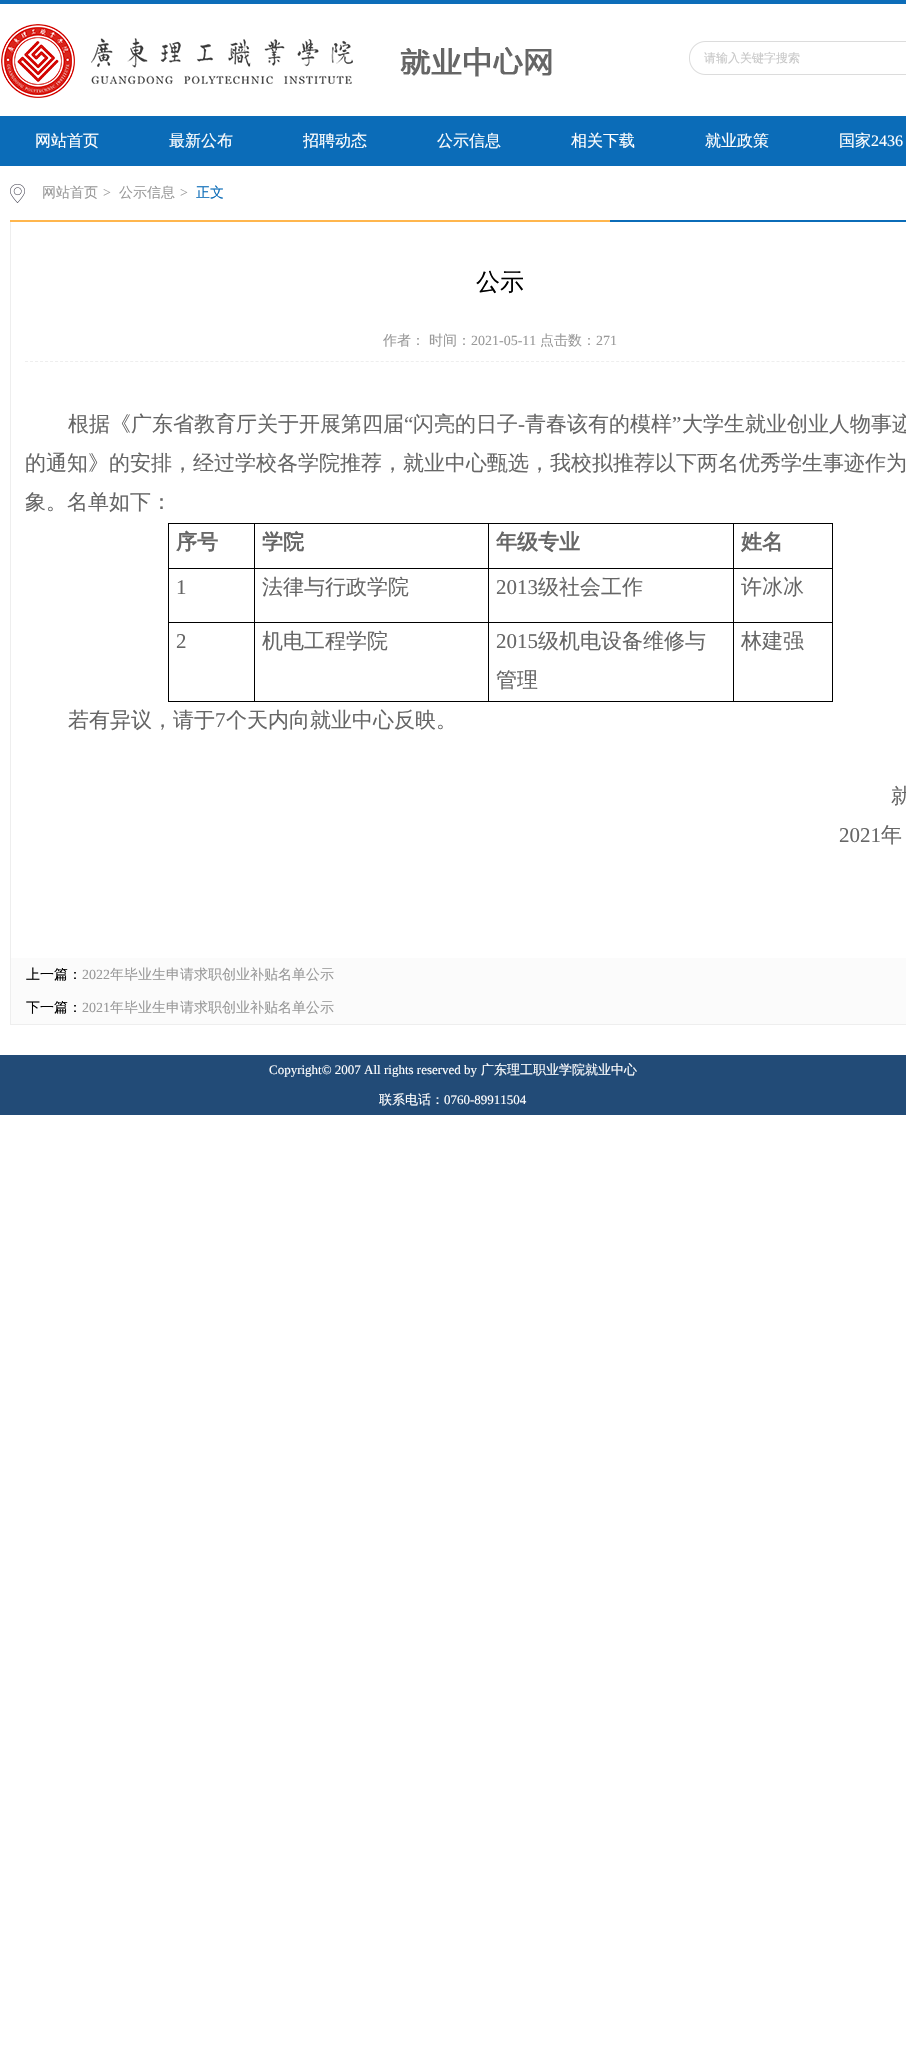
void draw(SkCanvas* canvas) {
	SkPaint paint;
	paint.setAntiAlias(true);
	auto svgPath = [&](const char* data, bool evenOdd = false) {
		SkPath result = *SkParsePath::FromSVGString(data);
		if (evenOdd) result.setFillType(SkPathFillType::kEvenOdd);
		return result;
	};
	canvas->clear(0xffffffff);
	paint.setColor(0xff0d6db9);
	canvas->drawRect(SkRect::MakeXYWH(0, 0, 906, 4), paint);
	canvas->drawImageRect(SkImages::DeferredFromEncodedData(SkData::MakeFromFileName("img1.png")), SkRect::MakeXYWH(1, 24, 551, 74), SkSamplingOptions());
	canvas->drawImageRect(SkImages::DeferredFromEncodedData(SkData::MakeFromFileName("img2.png")), SkRect::MakeXYWH(689, 41, 217, 34), SkSamplingOptions());
	SkFont f1(fontMgr->matchFamilyStyle("WenQuanYi Zen Hei", SkFontStyle(500, SkFontStyle::kNormal_Width, SkFontStyle::kUpright_Slant)), 12);
	f1.setSubpixel(true);
	paint.setColor(0xffc8c8c8);
	canvas->drawString("请输入关键字搜索", 704, 62, f1, paint);
	paint.setColor(0xff0b6cb8);
	canvas->drawRect(SkRect::MakeXYWH(0, 116, 906, 50), paint);
	SkFont f2(fontMgr->matchFamilyStyle("WenQuanYi Zen Hei", SkFontStyle(500, SkFontStyle::kNormal_Width, SkFontStyle::kUpright_Slant)), 16);
	f2.setSubpixel(true);
	paint.setColor(0xffffffff);
	canvas->drawString("网站首页", 35, 146, f2, paint);
	canvas->drawString("最新公布", 169, 146, f2, paint);
	canvas->drawString("招聘动态", 303, 146, f2, paint);
	canvas->drawString("公示信息", 437, 146, f2, paint);
	canvas->drawString("相关下载", 571, 146, f2, paint);
	canvas->drawString("就业政策", 705, 146, f2, paint);
	canvas->drawString("国家", 839, 146, f2, paint);
	SkFont f3(fontMgr->matchFamilyStyle("Liberation Serif", SkFontStyle::Normal()), 16);
	f3.setSubpixel(true);
	canvas->drawString("2436", 871, 146, f3, paint);
	paint.setColor(0xff0b6cb8);
	canvas->drawRect(SkRect::MakeXYWH(610, 220, 296, 2), paint);
	paint.setColor(0xffffb64d);
	canvas->drawRect(SkRect::MakeXYWH(10, 220, 600, 2), paint);
	canvas->drawImageRect(SkImages::DeferredFromEncodedData(SkData::MakeFromFileName("img3.png")), SkRect::MakeXYWH(10, 184, 15, 19), SkSamplingOptions());
	SkFont f4(fontMgr->matchFamilyStyle("WenQuanYi Zen Hei", SkFontStyle(500, SkFontStyle::kNormal_Width, SkFontStyle::kUpright_Slant)), 14);
	f4.setSubpixel(true);
	paint.setColor(0xff999999);
	canvas->drawString("网站首页", 42, 197, f4, paint);
	SkFont f5(fontMgr->matchFamilyStyle("Liberation Serif", SkFontStyle::Normal()), 14);
	f5.setSubpixel(true);
	canvas->drawString(">", 103, 197, f5, paint);
	canvas->drawString("公示信息", 119, 197, f4, paint);
	canvas->drawString(">", 180, 197, f5, paint);
	paint.setColor(0xff0b6cb8);
	canvas->drawString("正文", 196, 197, f4, paint);
	paint.setColor(0xffeeeeee);
	canvas->drawRect(SkRect::MakeXYWH(10, 1024, 896, 1), paint);
	canvas->drawRect(SkRect::MakeXYWH(10, 222, 1, 803), paint);
	paint.setStroke(true);
	paint.setStrokeWidth(1);
	paint.setPathEffect(SkDashPathEffect::Make({{3, 2.01f}}, 0));
	canvas->drawPath(svgPath("M25 361.5H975"), paint);
	paint.setPathEffect(nullptr);
	SkFont f6(fontMgr->matchFamilyStyle("WenQuanYi Zen Hei", SkFontStyle(500, SkFontStyle::kNormal_Width, SkFontStyle::kUpright_Slant)), 24);
	f6.setSubpixel(true);
	paint.setStroke(false);
	paint.setColor(0xff000000);
	canvas->drawString("公示", 476, 290, f6, paint);
	paint.setColor(0xff999999);
	canvas->drawString("作者：", 383, 345, f4, paint);
	canvas->drawString("时间：", 429, 345, f4, paint);
	canvas->drawString("2021-05-11", 471, 345, f5, paint);
	canvas->drawString("点击数：", 540, 345, f4, paint);
	canvas->drawString("271", 596, 345, f5, paint);
	SkFont f7(fontMgr->matchFamilyStyle("WenQuanYi Zen Hei", SkFontStyle(500, SkFontStyle::kNormal_Width, SkFontStyle::kUpright_Slant)), 21);
	f7.setSubpixel(true);
	paint.setColor(0xff666666);
	canvas->drawString("根据《广东省教育厅关于开展第四届", 68, 431, f7, paint);
	SkFont f8(fontMgr->matchFamilyStyle("Liberation Serif", SkFontStyle::Normal()), 21);
	f8.setSubpixel(true);
	canvas->drawString("“", 404, 431, f8, paint);
	canvas->drawString("闪亮的日子", 413, 431, f7, paint);
	canvas->drawString("青春该有的模样", 525, 431, f7, paint);
	canvas->drawString("”", 672, 431, f8, paint);
	canvas->drawString("大学生就业创业人物事迹", 682, 431, f7, paint);
	canvas->drawString("-", 518, 431, f8, paint);
	canvas->drawString("的通知》的安排，经过学校各学院推荐，就业中心甄选，我校拟推荐以下两名优秀学生事迹作为", 25, 470, f7, paint);
	canvas->drawString("象。名单如下：", 25, 509, f7, paint);
	paint.setColor(0xff000000);
	canvas->drawRect(SkRect::MakeXYWH(168, 523, 665, 1), paint);
	canvas->drawRect(SkRect::MakeXYWH(832, 568, 1, 134), paint);
	canvas->drawRect(SkRect::MakeXYWH(832, 523, 1, 46), paint);
	canvas->drawRect(SkRect::MakeXYWH(733, 701, 100, 1), paint);
	canvas->drawRect(SkRect::MakeXYWH(733, 622, 1, 80), paint);
	canvas->drawRect(SkRect::MakeXYWH(733, 622, 100, 1), paint);
	canvas->drawRect(SkRect::MakeXYWH(733, 568, 1, 55), paint);
	canvas->drawRect(SkRect::MakeXYWH(733, 568, 100, 1), paint);
	canvas->drawRect(SkRect::MakeXYWH(733, 523, 1, 46), paint);
	canvas->drawRect(SkRect::MakeXYWH(488, 701, 246, 1), paint);
	canvas->drawRect(SkRect::MakeXYWH(488, 622, 1, 80), paint);
	canvas->drawRect(SkRect::MakeXYWH(488, 622, 246, 1), paint);
	canvas->drawRect(SkRect::MakeXYWH(488, 568, 1, 55), paint);
	canvas->drawRect(SkRect::MakeXYWH(488, 568, 246, 1), paint);
	canvas->drawRect(SkRect::MakeXYWH(488, 523, 1, 46), paint);
	canvas->drawRect(SkRect::MakeXYWH(254, 701, 235, 1), paint);
	canvas->drawRect(SkRect::MakeXYWH(254, 622, 1, 80), paint);
	canvas->drawRect(SkRect::MakeXYWH(254, 622, 235, 1), paint);
	canvas->drawRect(SkRect::MakeXYWH(254, 568, 1, 55), paint);
	canvas->drawRect(SkRect::MakeXYWH(254, 568, 235, 1), paint);
	canvas->drawRect(SkRect::MakeXYWH(254, 523, 1, 46), paint);
	canvas->drawRect(SkRect::MakeXYWH(168, 701, 87, 1), paint);
	canvas->drawRect(SkRect::MakeXYWH(168, 622, 1, 80), paint);
	canvas->drawRect(SkRect::MakeXYWH(168, 622, 87, 1), paint);
	canvas->drawRect(SkRect::MakeXYWH(168, 568, 1, 55), paint);
	canvas->drawRect(SkRect::MakeXYWH(168, 568, 87, 1), paint);
	canvas->drawRect(SkRect::MakeXYWH(168, 523, 1, 46), paint);
	SkFont f9(fontMgr->matchFamilyStyle("WenQuanYi Zen Hei", SkFontStyle::Bold()), 21);
	f9.setSubpixel(true);
	paint.setColor(0xff666666);
	canvas->drawString("序号", 176, 549, f9, paint);
	canvas->drawString("学院", 262, 549, f9, paint);
	canvas->drawString("年级专业", 496, 549, f9, paint);
	canvas->drawString("姓名", 741, 549, f9, paint);
	canvas->drawString("1", 176, 594, f8, paint);
	canvas->drawString("法律与行政学院", 262, 594, f7, paint);
	canvas->drawString("2013", 496, 594, f8, paint);
	canvas->drawString("级社会工作", 538, 594, f7, paint);
	canvas->drawString("许冰冰", 741, 594, f7, paint);
	canvas->drawString("2", 176, 648, f8, paint);
	canvas->drawString("机电工程学院", 262, 648, f7, paint);
	canvas->drawString("2015", 496, 648, f8, paint);
	canvas->drawString("级机电设备维修与", 538, 648, f7, paint);
	canvas->drawString("管理", 496, 687, f7, paint);
	canvas->drawString("林建强", 741, 648, f7, paint);
	canvas->drawString("若有异议，请于", 68, 727, f7, paint);
	canvas->drawString("7", 215, 727, f8, paint);
	canvas->drawString("个天内向就业中心反映。", 226, 727, f7, paint);
	canvas->drawString("就", 891, 803, f7, paint);
	canvas->drawString("2021", 839, 842, f8, paint);
	canvas->drawString("年", 881, 842, f7, paint);
	paint.setColor(0xfffbfbfb);
	canvas->drawRect(SkRect::MakeXYWH(11, 958, 895, 66), paint);
	paint.setColor(0xff000000);
	canvas->drawString("上一篇：", 26, 979, f4, paint);
	paint.setColor(0xff999999);
	canvas->drawString("2022", 82, 979, f5, paint);
	canvas->drawString("年毕业生申请求职创业补贴名单公示", 110, 979, f4, paint);
	paint.setColor(0xff000000);
	canvas->drawString("下一篇：", 26, 1012, f4, paint);
	paint.setColor(0xff999999);
	canvas->drawString("2021", 82, 1012, f5, paint);
	canvas->drawString("年毕业生申请求职创业补贴名单公示", 110, 1012, f4, paint);
	paint.setColor(0xff224b77);
	canvas->drawRect(SkRect::MakeXYWH(0, 1055, 906, 60), paint);
	SkFont f10(fontMgr->matchFamilyStyle("Liberation Serif", SkFontStyle::Normal()), 13);
	f10.setSubpixel(true);
	paint.setColor(0xffffffff);
	canvas->drawString("Copyright© 2007 All rights reserved by", 269, 1074, f10, paint);
	SkFont f11(fontMgr->matchFamilyStyle("WenQuanYi Zen Hei", SkFontStyle(500, SkFontStyle::kNormal_Width, SkFontStyle::kUpright_Slant)), 13);
	f11.setSubpixel(true);
	canvas->drawString("广东理工职业学院就业中心", 481, 1074, f11, paint);
	canvas->drawString("联系电话：", 379, 1104, f11, paint);
	canvas->drawString("0760-89911504", 444, 1104, f10, paint);
}
